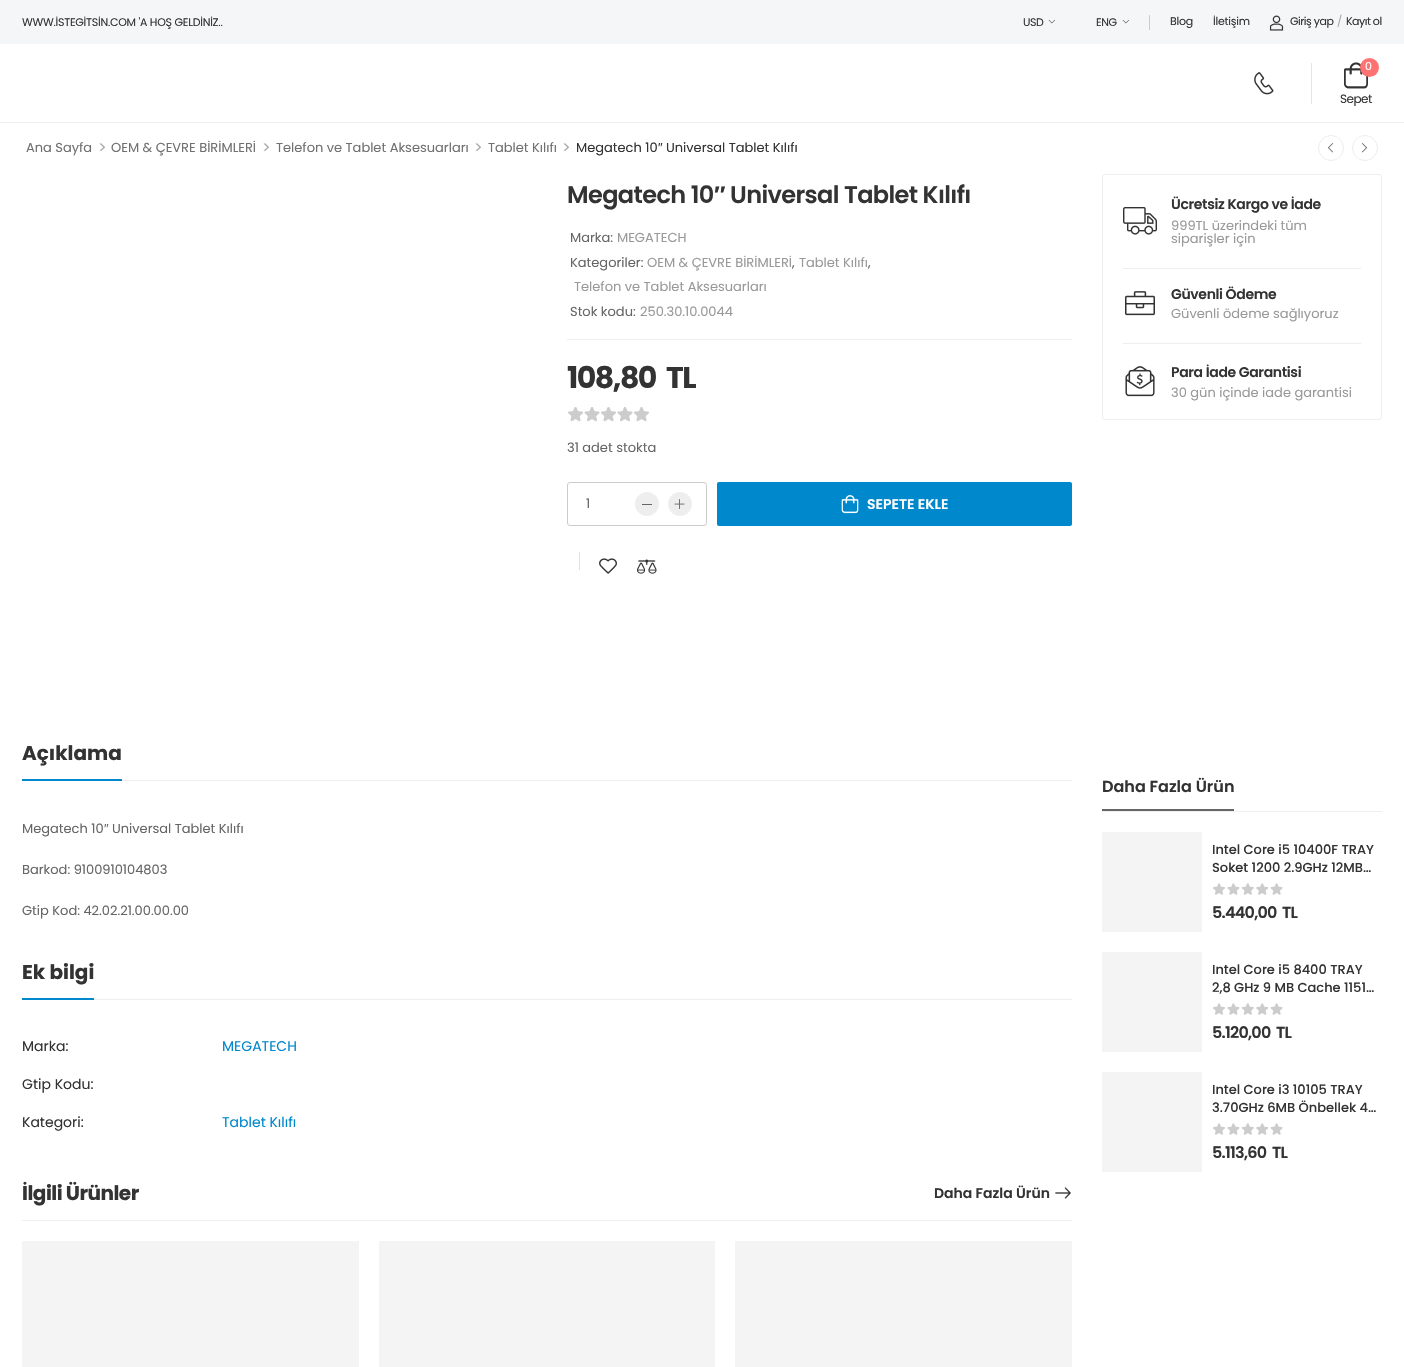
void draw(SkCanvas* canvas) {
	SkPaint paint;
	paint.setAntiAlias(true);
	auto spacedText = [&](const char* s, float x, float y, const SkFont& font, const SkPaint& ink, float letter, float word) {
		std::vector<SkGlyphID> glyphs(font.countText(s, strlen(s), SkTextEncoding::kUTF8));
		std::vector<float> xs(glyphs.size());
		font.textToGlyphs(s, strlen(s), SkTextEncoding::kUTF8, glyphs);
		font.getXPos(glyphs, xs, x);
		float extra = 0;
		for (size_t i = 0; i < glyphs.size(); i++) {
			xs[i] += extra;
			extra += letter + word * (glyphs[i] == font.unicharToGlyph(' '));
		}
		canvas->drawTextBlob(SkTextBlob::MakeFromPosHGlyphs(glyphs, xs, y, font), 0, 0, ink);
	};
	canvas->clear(0xffffffff);
	paint.setColor(0xfff5f6f8);
	canvas->drawRect(SkRect::MakeXYWH(0, 0, 1404, 44), paint);
	SkFont f1(fontMgr->matchFamilyStyle("Poppins", SkFontStyle::Normal()), 11);
	f1.setSubpixel(true);
	paint.setColor(0xff333333);
	spacedText("WWW.İSTEGİTSİN.COM 'A HOŞ GELDİNİZ..", 22, 26, f1, paint, -0.25, 0);
	spacedText("USD", 1023, 26, f1, paint, -0.5, 0);
	canvas->drawImageRect(SkImages::DeferredFromEncodedData(SkData::MakeFromFileName("img1.png")), SkRect::MakeXYWH(1048, 19, 7, 5), SkSamplingOptions());
	spacedText("ENG", 1096, 26, f1, paint, -0.5, 0);
	canvas->drawImageRect(SkImages::DeferredFromEncodedData(SkData::MakeFromFileName("img1.png")), SkRect::MakeXYWH(1122, 19, 7, 5), SkSamplingOptions());
	paint.setColor(0xffcccccc);
	canvas->drawRect(SkRect::MakeXYWH(1149, 15, 1, 15), paint);
	paint.setColor(0xff333333);
	spacedText("Blog", 1170, 25, f1, paint, -0.25, 0);
	spacedText("İletişim", 1213, 25, f1, paint, -0.25, 0);
	canvas->drawImageRect(SkImages::DeferredFromEncodedData(SkData::MakeFromFileName("img2.png")), SkRect::MakeXYWH(1269, 15, 15, 16), SkSamplingOptions());
	spacedText("Giriş yap", 1290, 25, f1, paint, -0.5, 0);
	paint.setColor(0xffaaaaaa);
	spacedText("/", 1337, 25, f1, paint, -0.5, 0);
	paint.setColor(0xff333333);
	spacedText("Kayıt ol", 1346, 25, f1, paint, -0.5, 0);
	paint.setColor(0xffeeeeee);
	canvas->drawRect(SkRect::MakeXYWH(0, 122, 1404, 1), paint);
	canvas->drawImageRect(SkImages::DeferredFromEncodedData(SkData::MakeFromFileName("img3.png")), SkRect::MakeXYWH(1254, 72, 20, 23), SkSamplingOptions());
	paint.setColor(0xffe5e5e5);
	canvas->drawRect(SkRect::MakeXYWH(1311, 63, 1, 41), paint);
	canvas->drawImageRect(SkImages::DeferredFromEncodedData(SkData::MakeFromFileName("img4.png")), SkRect::MakeXYWH(1344, 62, 24, 27), SkSamplingOptions());
	paint.setColor(0xffff7272);
	canvas->drawCircle(1369.5, 67.5, 9.5, paint);
	paint.setColor(0xffffffff);
	spacedText("0", 1365, 70, f1, paint, -0.5, 0);
	SkFont f2(fontMgr->matchFamilyStyle("Poppins", SkFontStyle::Normal()), 12);
	f2.setSubpixel(true);
	paint.setColor(0xff333333);
	spacedText("Sepet", 1340, 103, f2, paint, -0.5, 0);
	SkFont f3(fontMgr->matchFamilyStyle("Poppins", SkFontStyle::Normal()), 13);
	f3.setSubpixel(true);
	paint.setColor(0xff707070);
	canvas->drawString("Ana Sayfa", 26, 152, f3, paint);
	SkFont f4(fontMgr->matchFamilyStyle("Poppins", SkFontStyle::Normal()), 16);
	f4.setSubpixel(true);
	paint.setColor(0xffaaaaaa);
	canvas->drawString(">", 98, 153, f4, paint);
	paint.setColor(0xff707070);
	canvas->drawString("OEM & ÇEVRE BİRİMLERİ", 111, 152, f3, paint);
	paint.setColor(0xffaaaaaa);
	canvas->drawString(">", 262, 153, f4, paint);
	paint.setColor(0xff707070);
	canvas->drawString("Telefon ve Tablet Aksesuarları", 276, 152, f3, paint);
	paint.setColor(0xffaaaaaa);
	canvas->drawString(">", 474, 153, f4, paint);
	paint.setColor(0xff707070);
	canvas->drawString("Tablet Kılıfı", 488, 152, f3, paint);
	paint.setColor(0xffaaaaaa);
	canvas->drawString(">", 562, 153, f4, paint);
	paint.setColor(0xff333333);
	canvas->drawString("Megatech 10", 576, 152, f3, paint);
	SkFont f5(fontMgr->matchFamilyStyle("Liberation Sans", SkFontStyle::Normal()), 13);
	f5.setSubpixel(true);
	canvas->drawString("″", 658, 152, f5, paint);
	canvas->drawString("Universal Tablet Kılıfı", 666, 152, f3, paint);
	paint.setStroke(true);
	paint.setStrokeWidth(1);
	paint.setColor(0xffeeeeee);
	canvas->drawCircle(1331, 148, 12.5, paint);
	canvas->drawImageRect(SkImages::DeferredFromEncodedData(SkData::MakeFromFileName("img5.png")), SkRect::MakeXYWH(1327, 143, 7, 10), SkSamplingOptions());
	canvas->drawCircle(1365, 148, 12.5, paint);
	canvas->drawImageRect(SkImages::DeferredFromEncodedData(SkData::MakeFromFileName("img6.png")), SkRect::MakeXYWH(1361, 143, 7, 10), SkSamplingOptions());
	SkFont f6(fontMgr->matchFamilyStyle("Poppins", SkFontStyle(600, SkFontStyle::kNormal_Width, SkFontStyle::kUpright_Slant)), 24);
	f6.setSubpixel(true);
	paint.setStroke(false);
	paint.setColor(0xff333333);
	spacedText("Megatech 10", 567, 203, f6, paint, -0.6, 0);
	SkFont f7(fontMgr->matchFamilyStyle("Liberation Sans", SkFontStyle::Bold()), 24);
	f7.setSubpixel(true);
	spacedText("″", 714, 203, f7, paint, -0.6, 0);
	spacedText("Universal Tablet Kılıfı", 730, 203, f6, paint, -0.6, 0);
	paint.setColor(0xff666666);
	canvas->drawString("Marka:", 570, 242, f3, paint);
	paint.setColor(0xff999999);
	canvas->drawString("MEGATECH", 617, 242, f3, paint);
	paint.setColor(0xff666666);
	canvas->drawString("Kategoriler:", 570, 267, f3, paint);
	paint.setColor(0xff999999);
	canvas->drawString("OEM & ÇEVRE BİRİMLERİ", 647, 267, f3, paint);
	paint.setColor(0xff666666);
	canvas->drawString(",", 792, 267, f3, paint);
	paint.setColor(0xff999999);
	canvas->drawString("Tablet Kılıfı", 799, 267, f3, paint);
	paint.setColor(0xff666666);
	canvas->drawString(",", 868, 267, f3, paint);
	paint.setColor(0xff999999);
	canvas->drawString("Telefon ve Tablet Aksesuarları", 574, 291, f3, paint);
	paint.setColor(0xff666666);
	canvas->drawString("Stok kodu:", 570, 316, f3, paint);
	paint.setColor(0xff999999);
	canvas->drawString("250.30.10.0044", 640, 316, f3, paint);
	paint.setColor(0xffeeeeee);
	canvas->drawRect(SkRect::MakeXYWH(567, 339, 505, 1), paint);
	SkFont f8(fontMgr->matchFamilyStyle("Poppins", SkFontStyle::Bold()), 30);
	f8.setSubpixel(true);
	paint.setColor(0xff333333);
	spacedText("108,80", 567, 388, f8, paint, -1.5, 0);
	spacedText("TL", 666, 388, f8, paint, -1.5, 0);
	canvas->drawImageRect(SkImages::DeferredFromEncodedData(SkData::MakeFromFileName("img7.png")), SkRect::MakeXYWH(568, 407, 81, 15), SkSamplingOptions());
	paint.setColor(0xff666666);
	canvas->drawString("31 adet stokta", 567, 452, f3, paint);
	paint.setStroke(true);
	paint.setColor(0xffcccccc);
	canvas->drawRoundRect(SkRect::MakeXYWH(567.5, 482.5, 139, 43), 2.5, 2.5, paint);
	paint.setStroke(false);
	paint.setColor(0xff666666);
	canvas->drawString("1", 586, 508, f3, paint);
	paint.setColor(0xffeeeeee);
	canvas->drawCircle(647, 504, 12, paint);
	paint.setColor(0xff666666);
	canvas->drawRect(SkRect::MakeXYWH(642, 504, 10, 1), paint);
	paint.setColor(0xffeeeeee);
	canvas->drawCircle(680, 504, 12, paint);
	canvas->drawImageRect(SkImages::DeferredFromEncodedData(SkData::MakeFromFileName("img8.png")), SkRect::MakeXYWH(674, 499, 11, 10), SkSamplingOptions());
	paint.setColor(0xff0088cc);
	canvas->drawRoundRect(SkRect::MakeXYWH(717, 482, 355, 44), 2, 2, paint);
	canvas->drawImageRect(SkImages::DeferredFromEncodedData(SkData::MakeFromFileName("img9.png")), SkRect::MakeXYWH(841, 495, 18, 19), SkSamplingOptions());
	SkFont f9(fontMgr->matchFamilyStyle("Poppins", SkFontStyle(600, SkFontStyle::kNormal_Width, SkFontStyle::kUpright_Slant)), 14);
	f9.setSubpixel(true);
	paint.setColor(0xffffffff);
	canvas->drawString("SEPETE EKLE", 867, 509, f9, paint);
	paint.setColor(0xffe1e1e1);
	canvas->drawRect(SkRect::MakeXYWH(579, 552, 1, 18), paint);
	canvas->drawImageRect(SkImages::DeferredFromEncodedData(SkData::MakeFromFileName("img10.png")), SkRect::MakeXYWH(599, 558, 18, 16), SkSamplingOptions());
	canvas->drawImageRect(SkImages::DeferredFromEncodedData(SkData::MakeFromFileName("img11.png")), SkRect::MakeXYWH(637, 559, 20, 15), SkSamplingOptions());
	SkFont f10(fontMgr->matchFamilyStyle("Poppins", SkFontStyle::Bold()), 20);
	f10.setSubpixel(true);
	paint.setColor(0xff333333);
	canvas->drawString("Açıklama", 22, 760, f10, paint);
	paint.setColor(0xff0088cc);
	canvas->drawRect(SkRect::MakeXYWH(22, 779, 100, 2), paint);
	paint.setColor(0xffedeef0);
	canvas->drawRect(SkRect::MakeXYWH(122, 780, 950, 1), paint);
	paint.setColor(0xff666666);
	canvas->drawString("Megatech 10", 22, 833, f3, paint);
	canvas->drawString("″", 104, 833, f5, paint);
	canvas->drawString("Universal Tablet Kılıfı", 112, 833, f3, paint);
	canvas->drawString("Barkod: 9100910104803", 22, 874, f3, paint);
	canvas->drawString("Gtip Kod: 42.02.21.00.00.00", 22, 915, f3, paint);
	paint.setColor(0xff333333);
	canvas->drawString("Ek bilgi", 22, 979, f10, paint);
	paint.setColor(0xff0088cc);
	canvas->drawRect(SkRect::MakeXYWH(22, 998, 72, 2), paint);
	paint.setColor(0xffedeef0);
	canvas->drawRect(SkRect::MakeXYWH(94, 999, 978, 1), paint);
	SkFont f11(fontMgr->matchFamilyStyle("Poppins", SkFontStyle::Normal()), 14);
	f11.setSubpixel(true);
	paint.setColor(0xff333333);
	canvas->drawString("Marka:", 22, 1051, f11, paint);
	paint.setColor(0xff0088cc);
	canvas->drawString("MEGATECH", 222, 1051, f11, paint);
	paint.setColor(0xff333333);
	canvas->drawString("Gtip Kodu:", 22, 1089, f11, paint);
	canvas->drawString("Kategori:", 22, 1127, f11, paint);
	paint.setColor(0xff0088cc);
	canvas->drawString("Tablet Kılıfı", 222, 1127, f11, paint);
	paint.setColor(0xffeeeeee);
	canvas->drawRect(SkRect::MakeXYWH(22, 1220, 1050, 1), paint);
	paint.setColor(0xff333333);
	spacedText("İlgili Ürünler", 22, 1200, f10, paint, -0.5, 0);
	canvas->drawString("Daha Fazla Ürün", 934, 1198, f9, paint);
	canvas->drawImageRect(SkImages::DeferredFromEncodedData(SkData::MakeFromFileName("img12.png")), SkRect::MakeXYWH(1055, 1187, 16, 12), SkSamplingOptions());
	paint.setColor(0xfff4f4f4);
	canvas->drawRect(SkRect::MakeXYWH(22, 1241, 337, 126), paint);
	canvas->drawRect(SkRect::MakeXYWH(379, 1241, 336, 126), paint);
	canvas->drawRect(SkRect::MakeXYWH(735, 1241, 337, 126), paint);
	paint.setStroke(true);
	paint.setColor(0xffeeeeee);
	canvas->drawRoundRect(SkRect::MakeXYWH(1102.5, 174.5, 279, 245), 2.5, 2.5, paint);
	paint.setStroke(false);
	canvas->drawRect(SkRect::MakeXYWH(1123, 268, 238, 1), paint);
	canvas->drawImageRect(SkImages::DeferredFromEncodedData(SkData::MakeFromFileName("img13.png")), SkRect::MakeXYWH(1123, 207, 34, 28), SkSamplingOptions());
	paint.setColor(0xff333333);
	spacedText("Ücretsiz Kargo ve İade", 1171, 209, f9, paint, -0.35, 0);
	paint.setColor(0xff999999);
	canvas->drawString("999TL üzerindeki tüm", 1171, 230, f3, paint);
	canvas->drawString("siparişler için", 1171, 243, f3, paint);
	paint.setColor(0xffeeeeee);
	canvas->drawRect(SkRect::MakeXYWH(1123, 343, 238, 1), paint);
	canvas->drawImageRect(SkImages::DeferredFromEncodedData(SkData::MakeFromFileName("img14.png")), SkRect::MakeXYWH(1125, 291, 30, 25), SkSamplingOptions());
	paint.setColor(0xff333333);
	spacedText("Güvenli Ödeme", 1171, 299, f9, paint, -0.35, 0);
	paint.setColor(0xff999999);
	canvas->drawString("Güvenli ödeme sağlıyoruz", 1171, 318, f3, paint);
	canvas->drawImageRect(SkImages::DeferredFromEncodedData(SkData::MakeFromFileName("img15.png")), SkRect::MakeXYWH(1125, 366, 30, 31), SkSamplingOptions());
	paint.setColor(0xff333333);
	spacedText("Para İade Garantisi", 1171, 377, f9, paint, -0.35, 0);
	paint.setColor(0xff999999);
	canvas->drawString("30 gün içinde iade garantisi", 1171, 397, f3, paint);
	paint.setColor(0xff666666);
	canvas->drawRect(SkRect::MakeXYWH(1102, 809, 132, 2), paint);
	SkFont f12(fontMgr->matchFamilyStyle("Poppins", SkFontStyle(600, SkFontStyle::kNormal_Width, SkFontStyle::kUpright_Slant)), 16);
	f12.setSubpixel(true);
	paint.setColor(0xff333333);
	canvas->drawString("Daha Fazla Ürün", 1102, 792, f12, paint);
	paint.setColor(0xffeeeeee);
	canvas->drawRect(SkRect::MakeXYWH(1102, 811, 280, 1), paint);
	paint.setColor(0xfff4f4f4);
	canvas->drawRect(SkRect::MakeXYWH(1102, 832, 100, 100), paint);
	SkFont f13(fontMgr->matchFamilyStyle("Poppins", SkFontStyle(500, SkFontStyle::kNormal_Width, SkFontStyle::kUpright_Slant)), 13);
	f13.setSubpixel(true);
	paint.setColor(0xff333333);
	canvas->drawString("Intel Core i5 10400F TRAY", 1212, 854, f13, paint);
	canvas->drawString("Soket 1200 2.9GHz 12MB…", 1212, 872, f13, paint);
	canvas->drawImageRect(SkImages::DeferredFromEncodedData(SkData::MakeFromFileName("img16.png")), SkRect::MakeXYWH(1213, 883, 70, 12), SkSamplingOptions());
	spacedText("5.440,00", 1212, 918, f12, paint, -0.75, 0);
	spacedText("TL", 1282, 918, f12, paint, -0.75, 0);
	paint.setColor(0xfff4f4f4);
	canvas->drawRect(SkRect::MakeXYWH(1102, 952, 100, 100), paint);
	paint.setColor(0xff333333);
	canvas->drawString("Intel Core i5 8400 TRAY", 1212, 974, f13, paint);
	canvas->drawString("2,8 GHz 9 MB Cache 1151…", 1212, 992, f13, paint);
	canvas->drawImageRect(SkImages::DeferredFromEncodedData(SkData::MakeFromFileName("img16.png")), SkRect::MakeXYWH(1213, 1003, 70, 12), SkSamplingOptions());
	spacedText("5.120,00", 1212, 1038, f12, paint, -0.75, 0);
	spacedText("TL", 1276, 1038, f12, paint, -0.75, 0);
	paint.setColor(0xfff4f4f4);
	canvas->drawRect(SkRect::MakeXYWH(1102, 1072, 100, 100), paint);
	paint.setColor(0xff333333);
	canvas->drawString("Intel Core i3 10105 TRAY", 1212, 1094, f13, paint);
	canvas->drawString("3.70GHz 6MB Önbellek 4…", 1212, 1112, f13, paint);
	canvas->drawImageRect(SkImages::DeferredFromEncodedData(SkData::MakeFromFileName("img16.png")), SkRect::MakeXYWH(1213, 1123, 70, 12), SkSamplingOptions());
	spacedText("5.113,60", 1212, 1158, f12, paint, -0.75, 0);
	spacedText("TL", 1272, 1158, f12, paint, -0.75, 0);
}
